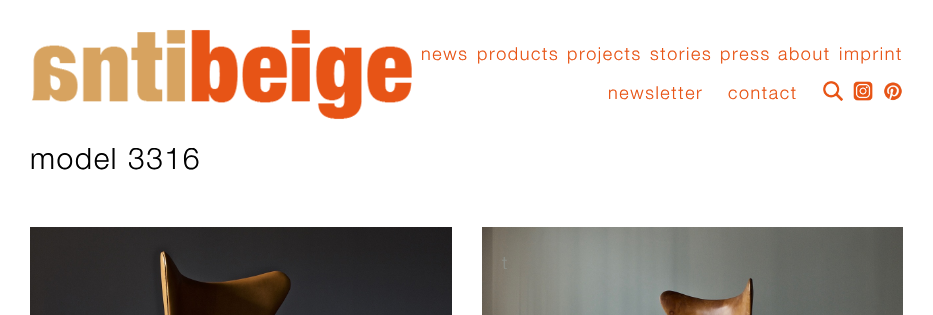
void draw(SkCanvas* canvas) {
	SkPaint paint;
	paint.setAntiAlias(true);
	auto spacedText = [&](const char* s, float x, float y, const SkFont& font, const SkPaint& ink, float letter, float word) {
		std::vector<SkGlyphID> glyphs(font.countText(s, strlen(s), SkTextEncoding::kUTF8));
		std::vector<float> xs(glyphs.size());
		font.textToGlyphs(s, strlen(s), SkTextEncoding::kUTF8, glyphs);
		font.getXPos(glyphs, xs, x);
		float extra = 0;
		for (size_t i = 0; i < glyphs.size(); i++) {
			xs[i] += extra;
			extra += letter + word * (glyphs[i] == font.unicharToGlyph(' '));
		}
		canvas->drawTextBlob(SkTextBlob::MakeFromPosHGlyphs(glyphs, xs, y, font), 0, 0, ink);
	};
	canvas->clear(0xffffffff);
	SkFont f1(fontMgr->matchFamilyStyle("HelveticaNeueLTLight", SkFontStyle(300, SkFontStyle::kNormal_Width, SkFontStyle::kUpright_Slant)), 30);
	f1.setSubpixel(true);
	paint.setColor(0xff000000);
	spacedText("model 3316", 30, 169, f1, paint, 1.6, 0);
	paint.setColor(0xffffffff);
	canvas->drawRect(SkRect::MakeXYWH(88, 147, 105, 1), paint);
	canvas->drawImageRect(SkImages::DeferredFromEncodedData(SkData::MakeFromFileName("img1.png")), SkRect::MakeXYWH(31, 29, 381, 91), SkSamplingOptions());
	SkFont f2(fontMgr->matchFamilyStyle("HelveticaNeueLTLight", SkFontStyle(300, SkFontStyle::kNormal_Width, SkFontStyle::kUpright_Slant)), 18);
	f2.setSubpixel(true);
	paint.setColor(0xffe85415);
	spacedText("news", 421, 60, f2, paint, 1.6, 0);
	spacedText("products", 477, 60, f2, paint, 1.6, 0);
	spacedText("projects", 567, 60, f2, paint, 1.6, 0);
	spacedText("stories", 650, 60, f2, paint, 1.6, 0);
	spacedText("press", 720, 60, f2, paint, 1.6, 0);
	spacedText("about", 778, 60, f2, paint, 1.6, 0);
	spacedText("imprint", 839, 60, f2, paint, 1.6, 0);
	spacedText("newsletter", 608, 99, f2, paint, 1.6, 0);
	spacedText("contact", 728, 99, f2, paint, 1.6, 0);
	canvas->drawImageRect(SkImages::DeferredFromEncodedData(SkData::MakeFromFileName("img2.png")), SkRect::MakeXYWH(823, 81, 20, 20), SkSamplingOptions());
	canvas->drawImageRect(SkImages::DeferredFromEncodedData(SkData::MakeFromFileName("img3.png")), SkRect::MakeXYWH(853, 81, 20, 20), SkSamplingOptions());
	canvas->drawImageRect(SkImages::DeferredFromEncodedData(SkData::MakeFromFileName("img4.png")), SkRect::MakeXYWH(884, 82, 18, 19), SkSamplingOptions());
	canvas->drawImageRect(SkImages::DeferredFromEncodedData(SkData::MakeFromFileName("img5.png")), SkRect::MakeXYWH(30, 227, 422, 88), SkSamplingOptions());
	canvas->drawImageRect(SkImages::DeferredFromEncodedData(SkData::MakeFromFileName("img6.png")), SkRect::MakeXYWH(482, 227, 421, 88), SkSamplingOptions());
	paint.setColor(0xff8c8f88);
	spacedText("t", 502, 269, f2, paint, 1.6, 0);
}
